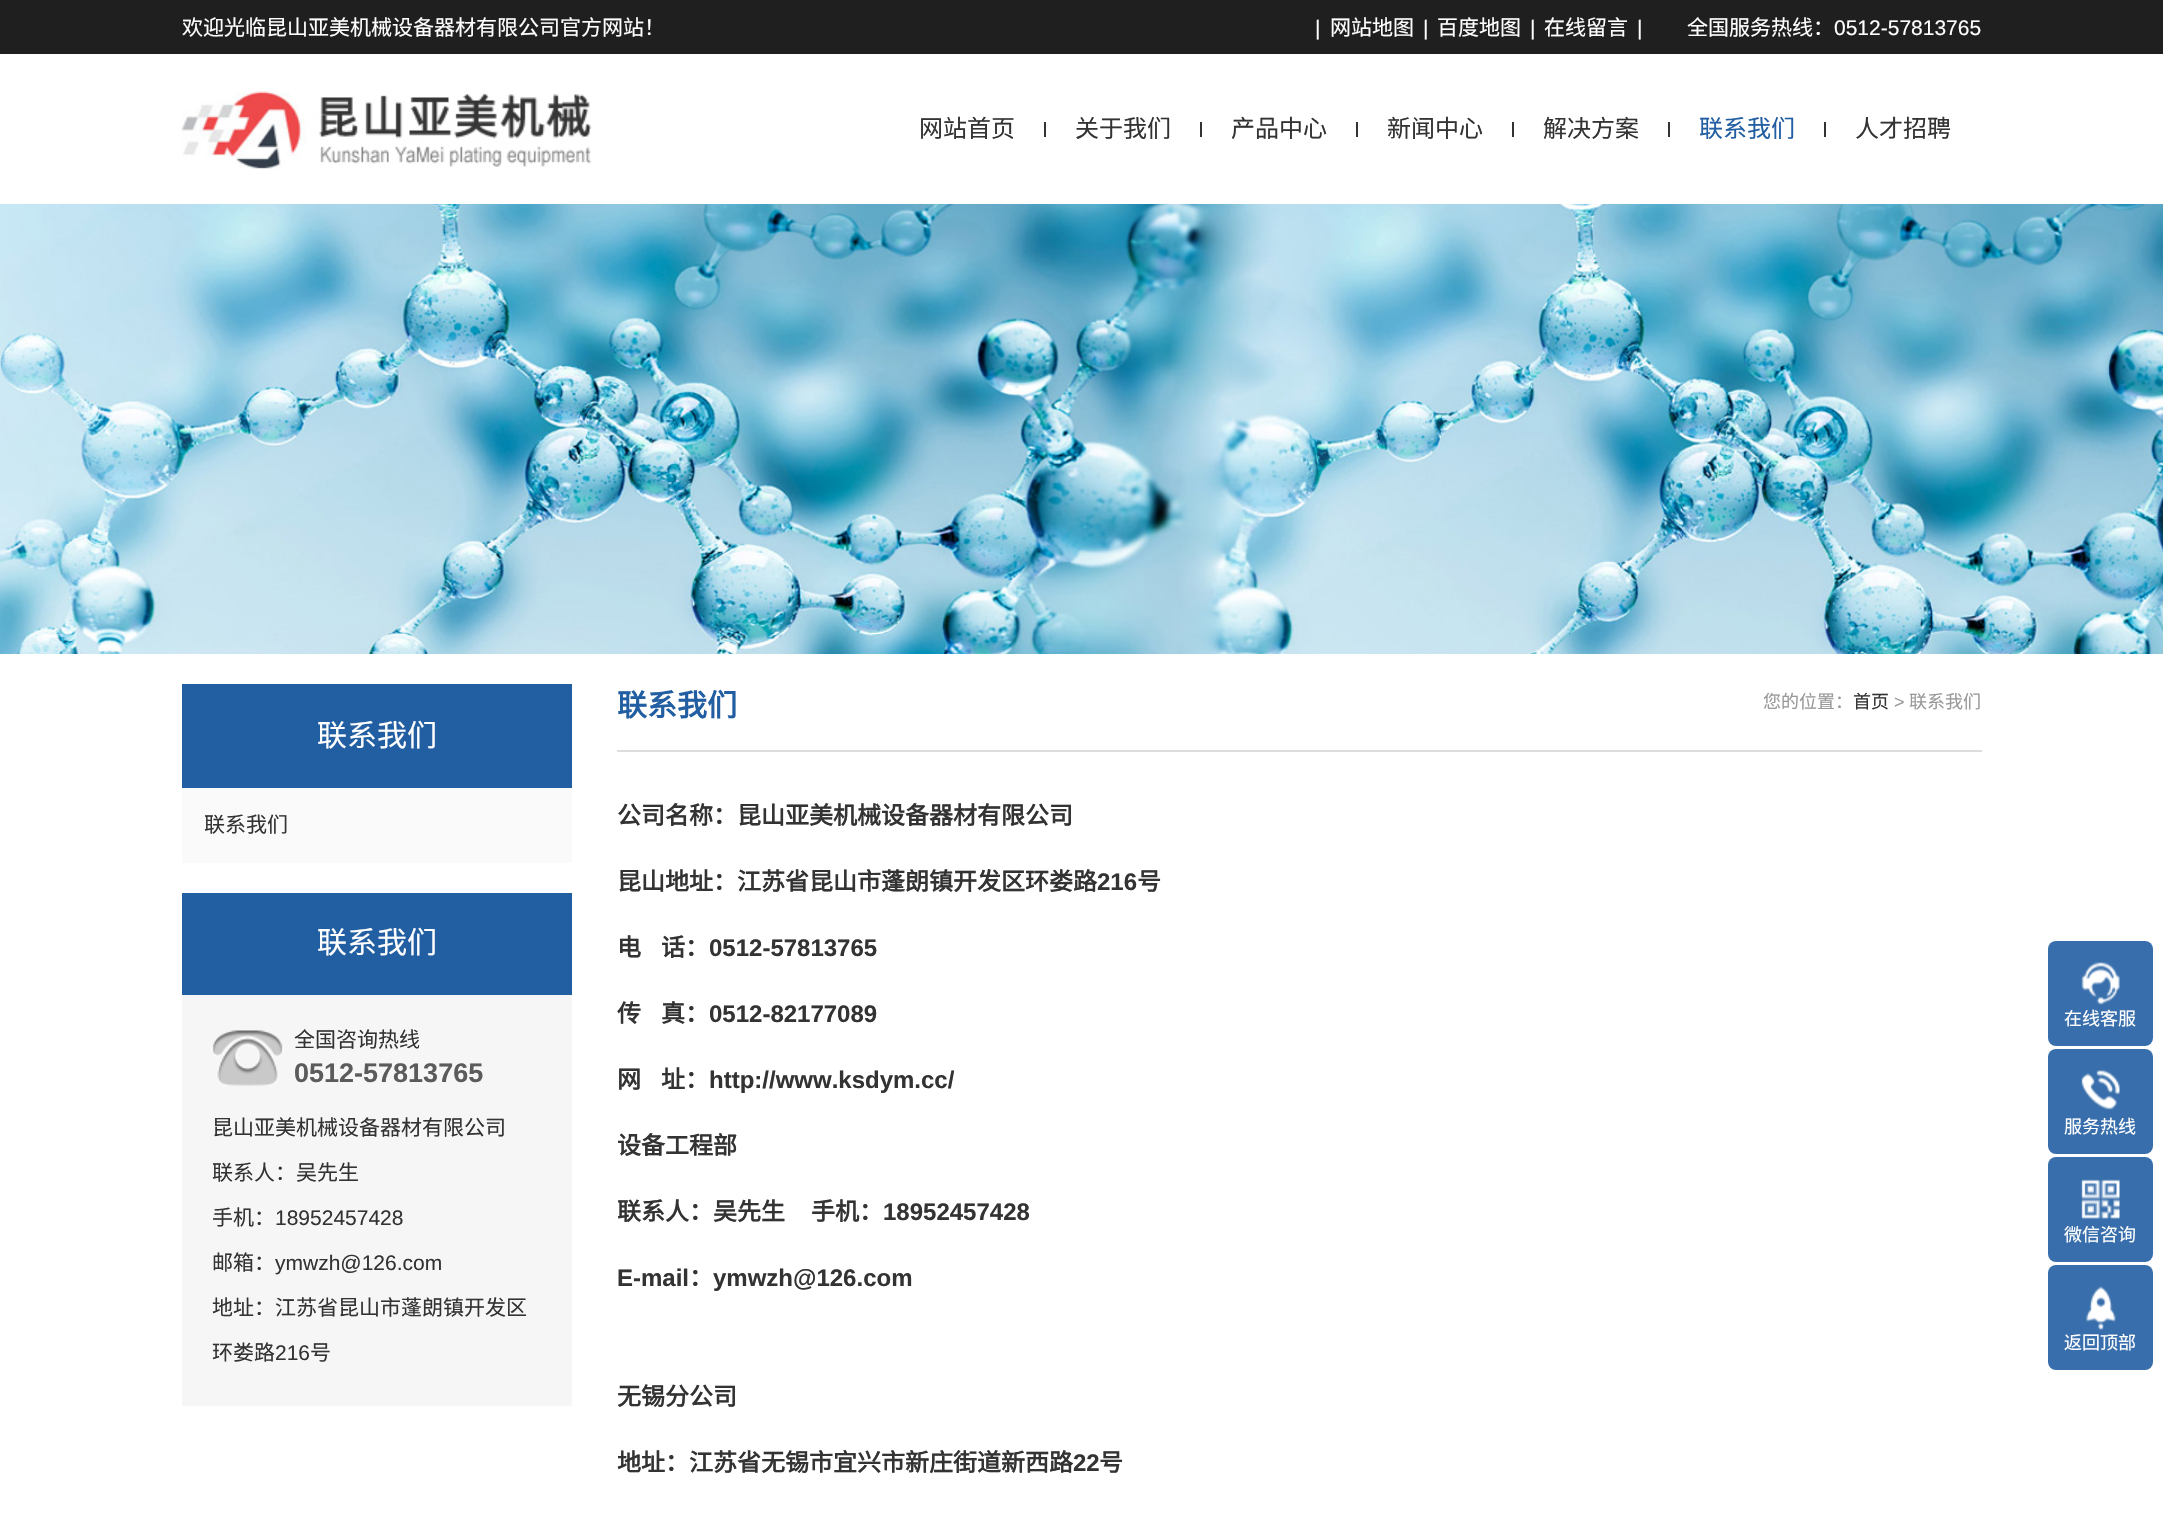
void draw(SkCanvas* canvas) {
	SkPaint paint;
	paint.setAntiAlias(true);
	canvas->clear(0xffffffff);
	paint.setColor(0xff1f1f1f);
	canvas->drawRect(SkRect::MakeXYWH(0, 0, 2163, 54), paint);
	SkFont f1(fontMgr->matchFamilyStyle("Noto Sans CJK SC", SkFontStyle::Normal()), 21);
	f1.setSubpixel(true);
	paint.setColor(0xffffffff);
	canvas->drawString("欢迎光临昆山亚美机械设备器材有限公司官方网站！", 182, 35, f1, paint);
	SkFont f2(fontMgr->matchFamilyStyle("Liberation Sans", SkFontStyle::Normal()), 21);
	f2.setSubpixel(true);
	canvas->drawString("|", 1315, 35, f2, paint);
	canvas->drawString("网站地图", 1330, 35, f1, paint);
	canvas->drawString("|", 1423, 35, f2, paint);
	canvas->drawString("百度地图", 1437, 35, f1, paint);
	canvas->drawString("|", 1530, 35, f2, paint);
	canvas->drawString("在线留言", 1544, 35, f1, paint);
	canvas->drawString("|", 1637, 35, f2, paint);
	canvas->drawString("全国服务热线：", 1687, 35, f1, paint);
	canvas->drawString("0512-57813765", 1834, 35, f2, paint);
	canvas->drawImageRect(SkImages::DeferredFromEncodedData(SkData::MakeFromFileName("img1.png")), SkRect::MakeXYWH(181, 91, 411, 78), SkSamplingOptions());
	SkFont f3(fontMgr->matchFamilyStyle("Noto Sans CJK SC", SkFontStyle::Normal()), 24);
	f3.setSubpixel(true);
	paint.setColor(0xff333333);
	canvas->drawString("网站首页", 919, 137, f3, paint);
	canvas->drawRect(SkRect::MakeXYWH(1044, 122, 2, 15), paint);
	canvas->drawString("关于我们", 1075, 137, f3, paint);
	canvas->drawRect(SkRect::MakeXYWH(1200, 122, 2, 15), paint);
	canvas->drawString("产品中心", 1231, 137, f3, paint);
	canvas->drawRect(SkRect::MakeXYWH(1356, 122, 2, 15), paint);
	canvas->drawString("新闻中心", 1387, 137, f3, paint);
	canvas->drawRect(SkRect::MakeXYWH(1512, 122, 2, 15), paint);
	canvas->drawString("解决方案", 1543, 137, f3, paint);
	canvas->drawRect(SkRect::MakeXYWH(1668, 122, 2, 15), paint);
	paint.setColor(0xff225ea2);
	canvas->drawString("联系我们", 1699, 137, f3, paint);
	paint.setColor(0xff333333);
	canvas->drawRect(SkRect::MakeXYWH(1824, 122, 2, 15), paint);
	canvas->drawString("人才招聘", 1855, 137, f3, paint);
	canvas->drawImageRect(SkImages::DeferredFromEncodedData(SkData::MakeFromFileName("img2.png")), SkRect::MakeXYWH(0, 204, 2163, 450), SkSamplingOptions());
	paint.setColor(0xff225ea2);
	canvas->drawRect(SkRect::MakeXYWH(182, 684, 390, 104), paint);
	SkFont f4(fontMgr->matchFamilyStyle("Noto Sans CJK SC", SkFontStyle::Normal()), 30);
	f4.setSubpixel(true);
	paint.setColor(0xffffffff);
	canvas->drawString("联系我们", 317, 746, f4, paint);
	paint.setColor(0xfffafafa);
	canvas->drawRect(SkRect::MakeXYWH(182, 788, 390, 75), paint);
	paint.setColor(0xff333333);
	canvas->drawString("联系我们", 204, 832, f1, paint);
	paint.setColor(0xfff6f6f6);
	canvas->drawRect(SkRect::MakeXYWH(182, 995, 390, 411), paint);
	paint.setColor(0xff225ea2);
	canvas->drawRect(SkRect::MakeXYWH(182, 893, 390, 102), paint);
	paint.setColor(0xffffffff);
	canvas->drawString("联系我们", 317, 953, f4, paint);
	canvas->drawImageRect(SkImages::DeferredFromEncodedData(SkData::MakeFromFileName("img3.png")), SkRect::MakeXYWH(211, 1030, 73, 56), SkSamplingOptions());
	paint.setColor(0xff333333);
	canvas->drawString("全国咨询热线", 294, 1047, f1, paint);
	SkFont f5(fontMgr->matchFamilyStyle("Liberation Sans", SkFontStyle::Bold()), 27);
	f5.setSubpixel(true);
	paint.setColor(0xff5b5b5b);
	canvas->drawString("0512-57813765", 294, 1082, f5, paint);
	paint.setColor(0xff333333);
	canvas->drawString("昆山亚美机械设备器材有限公司", 212, 1135, f1, paint);
	canvas->drawString("联系人：吴先生", 212, 1180, f1, paint);
	canvas->drawString("手机：", 212, 1225, f1, paint);
	canvas->drawString("18952457428", 275, 1225, f2, paint);
	canvas->drawString("邮箱：", 212, 1270, f1, paint);
	canvas->drawString("ymwzh@126.com", 275, 1270, f2, paint);
	canvas->drawString("地址：江苏省昆山市蓬朗镇开发区", 212, 1315, f1, paint);
	canvas->drawString("环娄路", 212, 1360, f1, paint);
	canvas->drawString("216", 275, 1360, f2, paint);
	canvas->drawString("号", 310, 1360, f1, paint);
	paint.setColor(0xffdddddd);
	canvas->drawRect(SkRect::MakeXYWH(617, 750, 1365, 2), paint);
	SkFont f6(fontMgr->matchFamilyStyle("Noto Sans CJK SC", SkFontStyle::Bold()), 30);
	f6.setSubpixel(true);
	paint.setColor(0xff225ea2);
	canvas->drawString("联系我们", 617, 716, f6, paint);
	SkFont f7(fontMgr->matchFamilyStyle("Noto Sans CJK SC", SkFontStyle::Normal()), 18);
	f7.setSubpixel(true);
	paint.setColor(0xff999999);
	canvas->drawString("您的位置：", 1763, 708, f7, paint);
	paint.setColor(0xff333333);
	canvas->drawString("首页", 1853, 708, f7, paint);
	SkFont f8(fontMgr->matchFamilyStyle("Liberation Sans", SkFontStyle::Normal()), 18);
	f8.setSubpixel(true);
	paint.setColor(0xff999999);
	canvas->drawString(">", 1894, 708, f8, paint);
	canvas->drawString("联系我们", 1909, 708, f7, paint);
	SkFont f9(fontMgr->matchFamilyStyle("Noto Sans CJK SC", SkFontStyle::Bold()), 24);
	f9.setSubpixel(true);
	paint.setColor(0xff333333);
	canvas->drawString("公司名称：昆山亚美机械设备器材有限公司", 617, 824, f9, paint);
	canvas->drawString("昆山地址：江苏省昆山市蓬朗镇开发区环娄路", 617, 890, f9, paint);
	SkFont f10(fontMgr->matchFamilyStyle("Liberation Sans", SkFontStyle::Bold()), 24);
	f10.setSubpixel(true);
	canvas->drawString("216", 1097, 890, f10, paint);
	canvas->drawString("号", 1137, 890, f9, paint);
	canvas->drawString("电", 617, 956, f9, paint);
	canvas->drawString("话：", 661, 956, f9, paint);
	canvas->drawString("0512-57813765", 709, 956, f10, paint);
	canvas->drawString("传", 617, 1022, f9, paint);
	canvas->drawString("真：", 661, 1022, f9, paint);
	canvas->drawString("0512-82177089", 709, 1022, f10, paint);
	canvas->drawString("网", 617, 1088, f9, paint);
	canvas->drawString("址：", 661, 1088, f9, paint);
	canvas->drawString("http://www.ksdym.cc/", 709, 1088, f10, paint);
	canvas->drawString("设备工程部", 617, 1154, f9, paint);
	canvas->drawString("联系人：吴先生", 617, 1220, f9, paint);
	canvas->drawString("手机：", 811, 1220, f9, paint);
	canvas->drawString("18952457428", 883, 1220, f10, paint);
	canvas->drawString("E-mail", 617, 1286, f10, paint);
	canvas->drawString("：", 689, 1286, f9, paint);
	canvas->drawString("ymwzh@126.com", 713, 1286, f10, paint);
	canvas->drawString("无锡分公司", 617, 1405, f9, paint);
	canvas->drawString("地址：江苏省无锡市宜兴市新庄街道新西路", 617, 1471, f9, paint);
	canvas->drawString("22", 1073, 1471, f10, paint);
	canvas->drawString("号", 1099, 1471, f9, paint);
	paint.setColor(0xff386eab);
	canvas->drawRoundRect(SkRect::MakeXYWH(2048, 941, 105, 105), 8, 8, paint);
	canvas->drawImageRect(SkImages::DeferredFromEncodedData(SkData::MakeFromFileName("img4.png")), SkRect::MakeXYWH(2081, 962, 39, 43), SkSamplingOptions());
	paint.setColor(0xffffffff);
	canvas->drawString("在线客服", 2064, 1025, f7, paint);
	paint.setColor(0xff386eab);
	canvas->drawRoundRect(SkRect::MakeXYWH(2048, 1049, 105, 105), 8, 8, paint);
	canvas->drawImageRect(SkImages::DeferredFromEncodedData(SkData::MakeFromFileName("img5.png")), SkRect::MakeXYWH(2081, 1070, 39, 40), SkSamplingOptions());
	paint.setColor(0xffffffff);
	canvas->drawString("服务热线", 2064, 1133, f7, paint);
	paint.setColor(0xff386eab);
	canvas->drawRoundRect(SkRect::MakeXYWH(2048, 1157, 105, 105), 8, 8, paint);
	canvas->drawImageRect(SkImages::DeferredFromEncodedData(SkData::MakeFromFileName("img6.png")), SkRect::MakeXYWH(2081, 1179, 39, 40), SkSamplingOptions());
	paint.setColor(0xffffffff);
	canvas->drawString("微信咨询", 2064, 1241, f7, paint);
	paint.setColor(0xff386eab);
	canvas->drawRoundRect(SkRect::MakeXYWH(2048, 1265, 105, 105), 8, 8, paint);
	canvas->drawImageRect(SkImages::DeferredFromEncodedData(SkData::MakeFromFileName("img7.png")), SkRect::MakeXYWH(2086, 1286, 30, 44), SkSamplingOptions());
	paint.setColor(0xffffffff);
	canvas->drawString("返回顶部", 2064, 1349, f7, paint);
}
